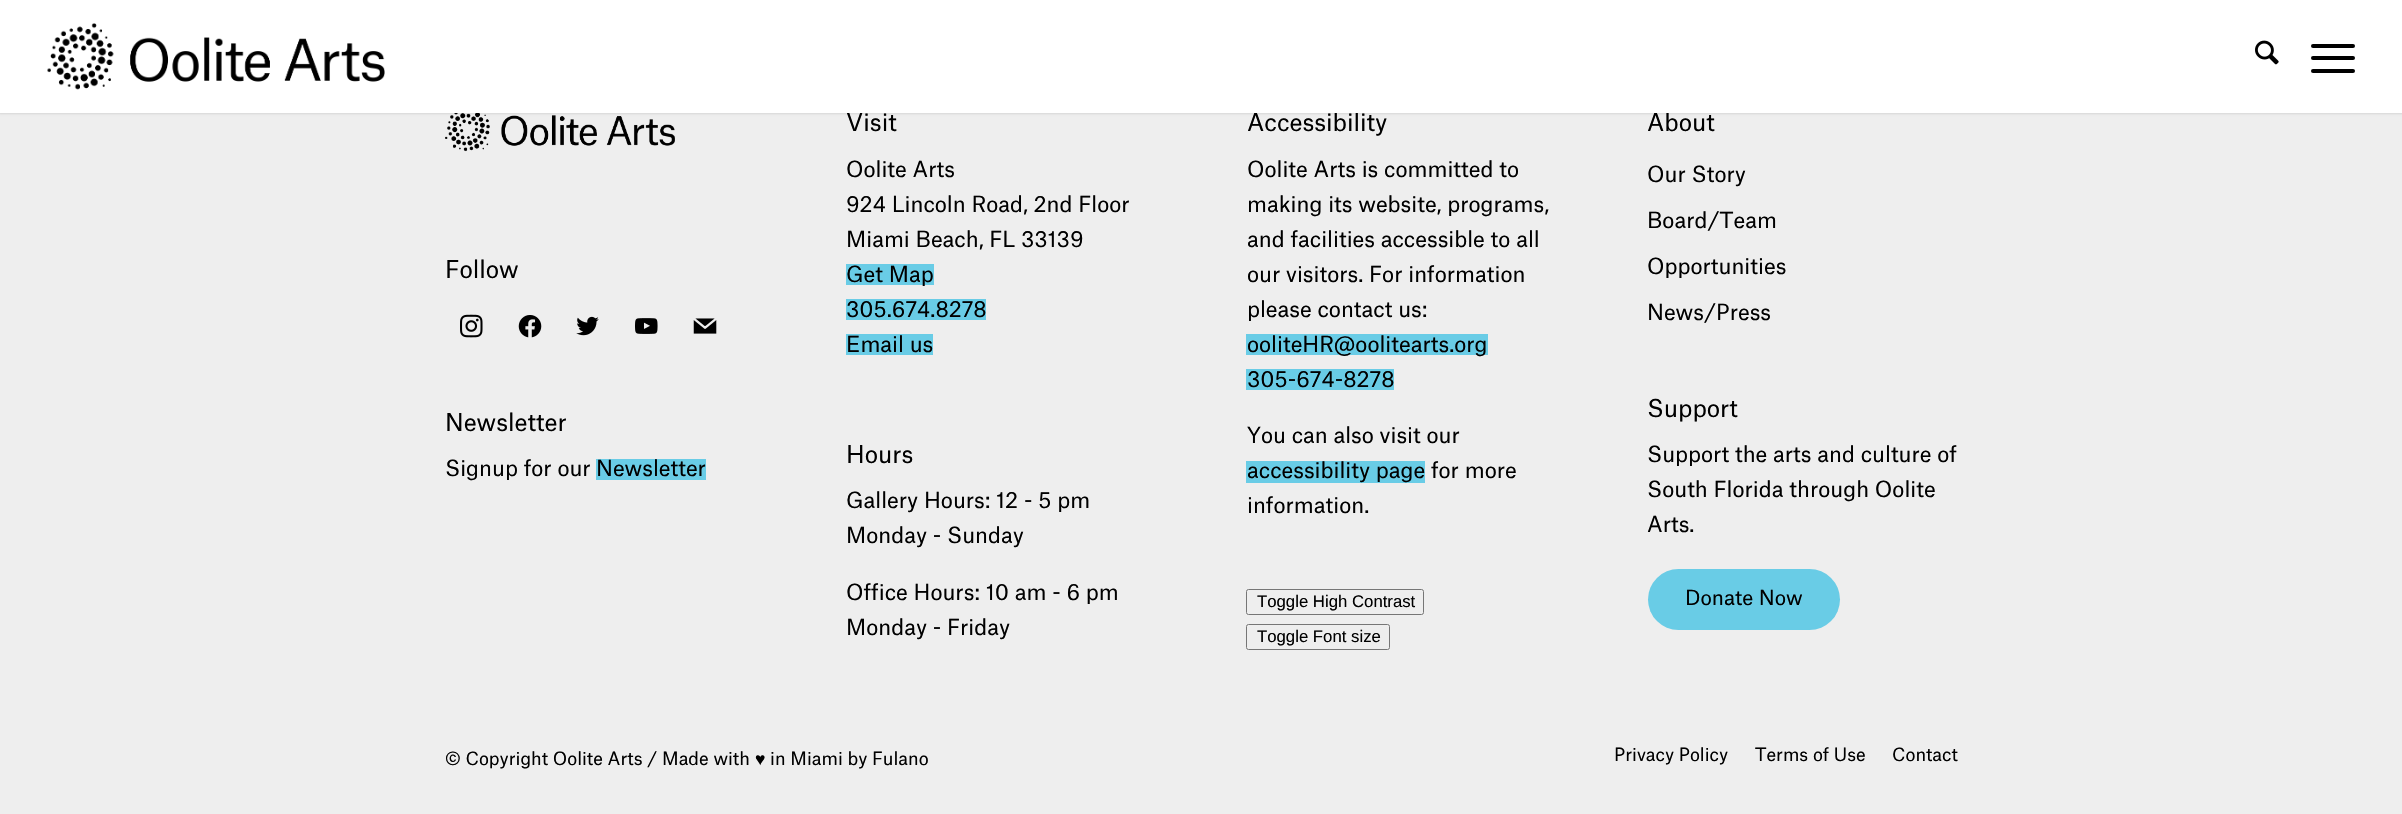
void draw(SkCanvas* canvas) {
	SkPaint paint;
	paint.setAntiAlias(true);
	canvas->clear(0xffeeeeee);
	canvas->drawImageRect(SkImages::DeferredFromEncodedData(SkData::MakeFromFileName("img3.png")), SkRect::MakeXYWH(445, 113, 230, 39), SkSamplingOptions());
	paint.setColor(0x1a000000);
	paint.setMaskFilter(SkMaskFilter::MakeBlur(kNormal_SkBlurStyle, 1));
	canvas->drawRect(SkRect::MakeXYWH(-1, -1, 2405, 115), paint);
	paint.setMaskFilter(nullptr);
	SkFont f1(fontMgr->matchFamilyStyle("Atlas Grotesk", SkFontStyle::Normal()), 23.5);
	f1.setSubpixel(true);
	paint.setColor(0xff000000);
	canvas->drawString("Accessibility", 1247, 131, f1, paint);
	canvas->drawString("About", 1647, 131, f1, paint);
	paint.setColor(0xffffffff);
	canvas->drawRect(SkRect::MakeXYWH(0, 0, 2402, 113), paint);
	canvas->drawImageRect(SkImages::DeferredFromEncodedData(SkData::MakeFromFileName("img1.png")), SkRect::MakeXYWH(47, 23, 338, 67), SkSamplingOptions());
	canvas->drawImageRect(SkImages::DeferredFromEncodedData(SkData::MakeFromFileName("img2.png")), SkRect::MakeXYWH(2255, 40, 24, 25), SkSamplingOptions());
	paint.setColor(0xff000000);
	canvas->drawRoundRect(SkRect::MakeXYWH(2311, 56, 44, 4), 2, 2, paint);
	canvas->drawRoundRect(SkRect::MakeXYWH(2311, 44, 44, 4), 2, 2, paint);
	canvas->drawRoundRect(SkRect::MakeXYWH(2311, 69, 44, 4), 2, 2, paint);
	canvas->drawString("Follow", 445, 278, f1, paint);
	canvas->drawImageRect(SkImages::DeferredFromEncodedData(SkData::MakeFromFileName("img4.png")), SkRect::MakeXYWH(460, 314, 23, 24), SkSamplingOptions());
	canvas->drawImageRect(SkImages::DeferredFromEncodedData(SkData::MakeFromFileName("img5.png")), SkRect::MakeXYWH(518, 315, 24, 23), SkSamplingOptions());
	canvas->drawImageRect(SkImages::DeferredFromEncodedData(SkData::MakeFromFileName("img6.png")), SkRect::MakeXYWH(576, 316, 23, 20), SkSamplingOptions());
	canvas->drawImageRect(SkImages::DeferredFromEncodedData(SkData::MakeFromFileName("img7.png")), SkRect::MakeXYWH(635, 318, 23, 16), SkSamplingOptions());
	canvas->drawImageRect(SkImages::DeferredFromEncodedData(SkData::MakeFromFileName("img8.png")), SkRect::MakeXYWH(693, 318, 24, 16), SkSamplingOptions());
	canvas->drawString("Newsletter", 445, 431, f1, paint);
	SkFont f2(fontMgr->matchFamilyStyle("Atlas Grotesk", SkFontStyle::Normal()), 21.25);
	f2.setSubpixel(true);
	canvas->drawString("Signup for our", 445, 476, f2, paint);
	paint.setColor(0xff69cce6);
	canvas->drawRect(SkRect::MakeXYWH(596, 459, 110, 21), paint);
	paint.setColor(0xff000000);
	canvas->drawString("Newsletter", 596, 476, f2, paint);
	canvas->drawString("Visit", 846, 131, f1, paint);
	canvas->drawString("Oolite Arts", 846, 177, f2, paint);
	canvas->drawString("924 Lincoln Road, 2nd Floor", 846, 212, f2, paint);
	canvas->drawString("Miami Beach, FL 33139", 846, 247, f2, paint);
	paint.setColor(0xff69cce6);
	canvas->drawRect(SkRect::MakeXYWH(846, 264, 88, 21), paint);
	paint.setColor(0xff000000);
	canvas->drawString("Get Map", 846, 282, f2, paint);
	paint.setColor(0xff69cce6);
	canvas->drawRect(SkRect::MakeXYWH(846, 299, 140, 21), paint);
	paint.setColor(0xff000000);
	canvas->drawString("305.674.8278", 846, 317, f2, paint);
	paint.setColor(0xff69cce6);
	canvas->drawRect(SkRect::MakeXYWH(846, 334, 87, 21), paint);
	paint.setColor(0xff000000);
	canvas->drawString("Email us", 846, 352, f2, paint);
	canvas->drawString("Hours", 846, 463, f1, paint);
	canvas->drawString("Gallery Hours: 12 - 5 pm", 846, 508, f2, paint);
	canvas->drawString("Monday - Sunday", 846, 543, f2, paint);
	canvas->drawString("Office Hours: 10 am - 6 pm", 846, 600, f2, paint);
	canvas->drawString("Monday - Friday", 846, 635, f2, paint);
	canvas->drawString("Oolite Arts is committed to", 1247, 177, f2, paint);
	canvas->drawString("making its website, programs,", 1247, 212, f2, paint);
	canvas->drawString("and facilities accessible to all", 1247, 247, f2, paint);
	canvas->drawString("our visitors. For information", 1247, 282, f2, paint);
	canvas->drawString("please contact us:", 1247, 317, f2, paint);
	paint.setColor(0xff69cce6);
	canvas->drawRect(SkRect::MakeXYWH(1246, 334, 242, 21), paint);
	paint.setColor(0xff000000);
	canvas->drawString("ooliteHR@oolitearts.org", 1247, 352, f2, paint);
	paint.setColor(0xff69cce6);
	canvas->drawRect(SkRect::MakeXYWH(1246, 369, 148, 21), paint);
	paint.setColor(0xff000000);
	canvas->drawString("305-674-8278", 1247, 387, f2, paint);
	canvas->drawString("You can also visit our", 1247, 443, f2, paint);
	paint.setColor(0xff69cce6);
	canvas->drawRect(SkRect::MakeXYWH(1246, 461, 179, 22), paint);
	paint.setColor(0xff000000);
	canvas->drawString("accessibility page for more", 1247, 478, f2, paint);
	canvas->drawString("information.", 1247, 513, f2, paint);
	paint.setStroke(true);
	paint.setStrokeWidth(1);
	paint.setColor(0xff767676);
	canvas->drawRoundRect(SkRect::MakeXYWH(1246.5, 589.5, 177, 25), 2, 2, paint);
	SkFont f3(fontMgr->matchFamilyStyle("Liberation Sans", SkFontStyle::Normal()), 16.75);
	f3.setSubpixel(true);
	paint.setStroke(false);
	paint.setColor(0xff000000);
	canvas->drawString("Toggle High Contrast", 1257, 607, f3, paint);
	paint.setStroke(true);
	paint.setColor(0xff767676);
	canvas->drawRoundRect(SkRect::MakeXYWH(1246.5, 624.5, 143, 25), 2, 2, paint);
	paint.setStroke(false);
	paint.setColor(0xff000000);
	canvas->drawString("Toggle Font size", 1257, 642, f3, paint);
	canvas->drawString("Our Story", 1647, 182, f2, paint);
	canvas->drawString("Board/Team", 1647, 228, f2, paint);
	canvas->drawString("Opportunities", 1647, 274, f2, paint);
	canvas->drawString("News/Press", 1647, 320, f2, paint);
	canvas->drawString("Support", 1647, 417, f1, paint);
	canvas->drawString("Support the arts and culture of", 1647, 462, f2, paint);
	canvas->drawString("South Florida through Oolite", 1647, 497, f2, paint);
	canvas->drawString("Arts.", 1647, 532, f2, paint);
	paint.setColor(0xff69cce6);
	canvas->drawRoundRect(SkRect::MakeXYWH(1648, 569, 192, 61), 30.5, 30.5, paint);
	SkFont f4(fontMgr->matchFamilyStyle("Atlas Grotesk", SkFontStyle::Normal()), 20);
	f4.setSubpixel(true);
	paint.setColor(0xff000000);
	canvas->drawString("Donate Now", 1685, 605, f4, paint);
	SkFont f5(fontMgr->matchFamilyStyle("Atlas Grotesk", SkFontStyle::Normal()), 17.5);
	f5.setSubpixel(true);
	canvas->drawString("© Copyright Oolite Arts / Made with", 445, 765, f5, paint);
	SkFont f6(fontMgr->matchFamilyStyle("Liberation Sans", SkFontStyle::Normal()), 17.5);
	f6.setSubpixel(true);
	canvas->drawString("♥", 755, 765, f6, paint);
	canvas->drawString("in Miami by Fulano", 770, 765, f5, paint);
	canvas->drawString("Privacy Policy", 1614, 761, f5, paint);
	canvas->drawString("Terms of Use", 1755, 761, f5, paint);
	canvas->drawString("Contact", 1892, 761, f5, paint);
}
